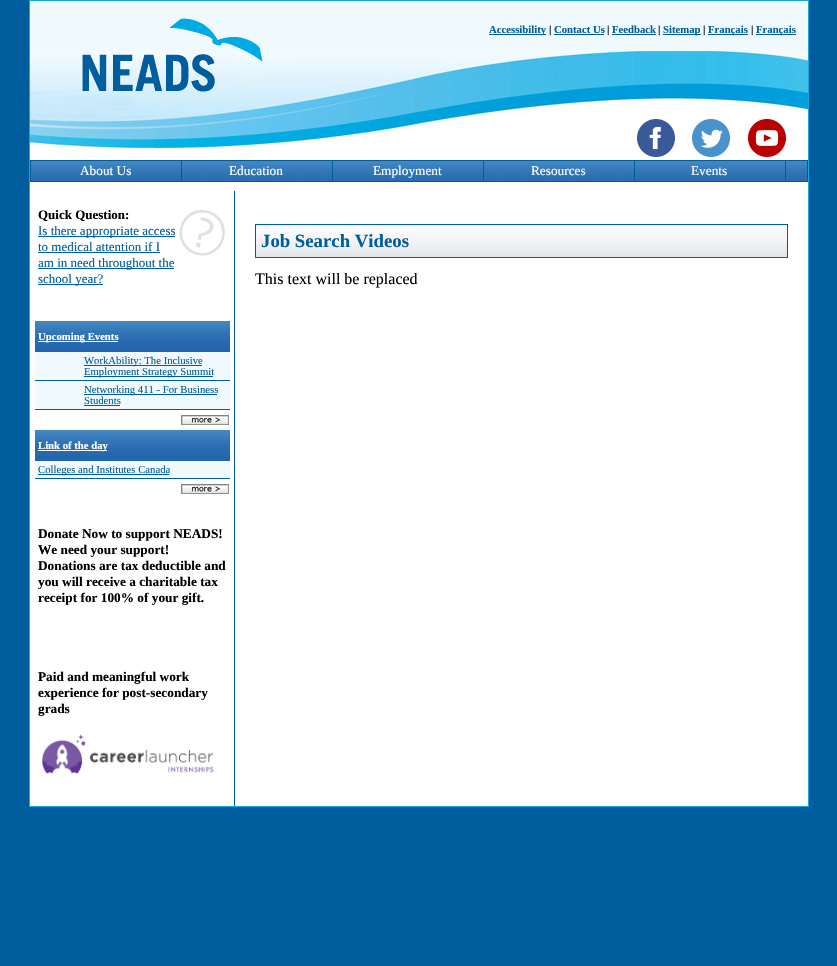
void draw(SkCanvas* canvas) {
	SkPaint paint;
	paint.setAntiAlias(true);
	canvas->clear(0xff005d9d);
	paint.setColor(0xffffffff);
	canvas->drawRect(SkRect::MakeXYWH(30, 151, 778, 655), paint);
	paint.setStroke(true);
	paint.setStrokeWidth(1);
	paint.setColor(0xff15a9e1);
	canvas->drawRect(SkRect::MakeXYWH(29.5, 0.5, 779, 806), paint);
	paint.setStroke(false);
	paint.setColor(0xfff0f9fe);
	canvas->drawRect(SkRect::MakeXYWH(30, 1, 778, 50), paint);
	canvas->drawImageRect(SkImages::DeferredFromEncodedData(SkData::MakeFromFileName("img1.png")), SkRect::MakeXYWH(30, 51, 778, 100), SkSamplingOptions());
	canvas->drawImageRect(SkImages::DeferredFromEncodedData(SkData::MakeFromFileName("img2.png")), SkRect::MakeXYWH(82, 18, 181, 74), SkSamplingOptions());
	paint.setColor(0xff005d9d);
	canvas->drawRect(SkRect::MakeXYWH(489, 34, 57, 1), paint);
	SkFont f1(fontMgr->matchFamilyStyle("Liberation Serif", SkFontStyle::Bold()), 10.7);
	f1.setSubpixel(true);
	canvas->drawString("Accessibility", 489, 33, f1, paint);
	paint.setColor(0xff000000);
	canvas->drawString("|", 549, 33, f1, paint);
	paint.setColor(0xff005d9d);
	canvas->drawString("Contact Us", 554, 33, f1, paint);
	canvas->drawRect(SkRect::MakeXYWH(554, 34, 50, 1), paint);
	paint.setColor(0xff000000);
	canvas->drawString("|", 607, 33, f1, paint);
	paint.setColor(0xff005d9d);
	canvas->drawString("Feedback", 612, 33, f1, paint);
	canvas->drawRect(SkRect::MakeXYWH(612, 34, 44, 1), paint);
	paint.setColor(0xff000000);
	canvas->drawString("|", 658, 33, f1, paint);
	paint.setColor(0xff005d9d);
	canvas->drawRect(SkRect::MakeXYWH(663, 34, 38, 1), paint);
	canvas->drawString("Sitemap", 663, 33, f1, paint);
	paint.setColor(0xff000000);
	canvas->drawString("|", 703, 33, f1, paint);
	paint.setColor(0xff005d9d);
	canvas->drawRect(SkRect::MakeXYWH(708, 34, 40, 1), paint);
	canvas->drawString("Français", 708, 33, f1, paint);
	paint.setColor(0xff000000);
	canvas->drawString("|", 751, 33, f1, paint);
	paint.setColor(0xff005d9d);
	canvas->drawRect(SkRect::MakeXYWH(756, 34, 40, 1), paint);
	canvas->drawString("Français", 756, 33, f1, paint);
	canvas->drawImageRect(SkImages::DeferredFromEncodedData(SkData::MakeFromFileName("img3.png")), SkRect::MakeXYWH(637, 119, 38, 38), SkSamplingOptions());
	canvas->drawImageRect(SkImages::DeferredFromEncodedData(SkData::MakeFromFileName("img4.png")), SkRect::MakeXYWH(692, 119, 38, 38), SkSamplingOptions());
	canvas->drawImageRect(SkImages::DeferredFromEncodedData(SkData::MakeFromFileName("img5.png")), SkRect::MakeXYWH(748, 119, 38, 38), SkSamplingOptions());
	canvas->drawImageRect(SkImages::DeferredFromEncodedData(SkData::MakeFromFileName("img6.png")), SkRect::MakeXYWH(786, 161, 21, 20), SkSamplingOptions());
	paint.setStroke(true);
	canvas->drawRect(SkRect::MakeXYWH(30.5, 160.5, 777, 21), paint);
	canvas->drawImageRect(SkImages::DeferredFromEncodedData(SkData::MakeFromFileName("img7.png")), SkRect::MakeXYWH(31, 161, 150, 20), SkSamplingOptions());
	paint.setStroke(false);
	canvas->drawRect(SkRect::MakeXYWH(181, 161, 1, 20), paint);
	SkFont f2(fontMgr->matchFamilyStyle("Liberation Serif", SkFontStyle::Normal()), 13.3);
	f2.setSubpixel(true);
	paint.setColor(0xffffffff);
	canvas->drawString("About Us", 80, 175, f2, paint);
	canvas->drawImageRect(SkImages::DeferredFromEncodedData(SkData::MakeFromFileName("img7.png")), SkRect::MakeXYWH(182, 161, 150, 20), SkSamplingOptions());
	paint.setColor(0xff005d9d);
	canvas->drawRect(SkRect::MakeXYWH(332, 161, 1, 20), paint);
	paint.setColor(0xffffffff);
	canvas->drawString("Education", 229, 175, f2, paint);
	canvas->drawImageRect(SkImages::DeferredFromEncodedData(SkData::MakeFromFileName("img7.png")), SkRect::MakeXYWH(333, 161, 150, 20), SkSamplingOptions());
	paint.setColor(0xff005d9d);
	canvas->drawRect(SkRect::MakeXYWH(483, 161, 1, 20), paint);
	paint.setColor(0xffffffff);
	canvas->drawString("Employment", 373, 175, f2, paint);
	canvas->drawImageRect(SkImages::DeferredFromEncodedData(SkData::MakeFromFileName("img7.png")), SkRect::MakeXYWH(484, 161, 150, 20), SkSamplingOptions());
	paint.setColor(0xff005d9d);
	canvas->drawRect(SkRect::MakeXYWH(634, 161, 1, 20), paint);
	paint.setColor(0xffffffff);
	canvas->drawString("Resources", 531, 175, f2, paint);
	canvas->drawImageRect(SkImages::DeferredFromEncodedData(SkData::MakeFromFileName("img7.png")), SkRect::MakeXYWH(635, 161, 150, 20), SkSamplingOptions());
	paint.setColor(0xff005d9d);
	canvas->drawRect(SkRect::MakeXYWH(785, 161, 1, 20), paint);
	paint.setColor(0xffffffff);
	canvas->drawString("Events", 691, 175, f2, paint);
	SkFont f3(fontMgr->matchFamilyStyle("Liberation Serif", SkFontStyle::Bold()), 13);
	f3.setSubpixel(true);
	paint.setColor(0xff000000);
	canvas->drawString("Quick Question:", 38, 219, f3, paint);
	canvas->drawImageRect(SkImages::DeferredFromEncodedData(SkData::MakeFromFileName("img8.png")), SkRect::MakeXYWH(179, 209, 46, 47), SkSamplingOptions());
	paint.setColor(0xff005d9d);
	canvas->drawRect(SkRect::MakeXYWH(38, 236, 137, 1), paint);
	SkFont f4(fontMgr->matchFamilyStyle("Liberation Serif", SkFontStyle::Normal()), 13);
	f4.setSubpixel(true);
	canvas->drawString("Is there appropriate access", 38, 235, f4, paint);
	canvas->drawString("to medical attention if I", 38, 251, f4, paint);
	canvas->drawRect(SkRect::MakeXYWH(38, 252, 122, 1), paint);
	canvas->drawRect(SkRect::MakeXYWH(38, 268, 136, 1), paint);
	canvas->drawString("am in need throughout the", 38, 267, f4, paint);
	canvas->drawRect(SkRect::MakeXYWH(38, 284, 65, 1), paint);
	canvas->drawString("school year?", 38, 283, f4, paint);
	canvas->drawImageRect(SkImages::DeferredFromEncodedData(SkData::MakeFromFileName("img9.png")), SkRect::MakeXYWH(35, 321, 195, 31), SkSamplingOptions());
	paint.setColor(0xffffffff);
	canvas->drawRect(SkRect::MakeXYWH(38, 341, 80, 1), paint);
	canvas->drawString("Upcoming Events", 38, 340, f1, paint);
	paint.setColor(0xfff0f9fe);
	canvas->drawRect(SkRect::MakeXYWH(35, 352, 195, 28), paint);
	paint.setColor(0xff005d9d);
	canvas->drawRect(SkRect::MakeXYWH(35, 380, 195, 1), paint);
	canvas->drawRect(SkRect::MakeXYWH(84, 365, 118, 1), paint);
	SkFont f5(fontMgr->matchFamilyStyle("Liberation Serif", SkFontStyle::Normal()), 10.7);
	f5.setSubpixel(true);
	canvas->drawString("WorkAbility: The Inclusive", 84, 364, f5, paint);
	canvas->drawRect(SkRect::MakeXYWH(84, 376, 129, 1), paint);
	canvas->drawString("Employment Strategy Summit", 84, 375, f5, paint);
	paint.setColor(0xfff0f9fe);
	canvas->drawRect(SkRect::MakeXYWH(35, 381, 195, 28), paint);
	paint.setColor(0xff005d9d);
	canvas->drawRect(SkRect::MakeXYWH(35, 409, 195, 1), paint);
	canvas->drawRect(SkRect::MakeXYWH(84, 394, 133, 1), paint);
	canvas->drawString("Networking 411 - For Business", 84, 393, f5, paint);
	canvas->drawString("Students", 84, 404, f5, paint);
	canvas->drawRect(SkRect::MakeXYWH(84, 405, 36, 1), paint);
	canvas->drawImageRect(SkImages::DeferredFromEncodedData(SkData::MakeFromFileName("img10.png")), SkRect::MakeXYWH(181, 415, 48, 10), SkSamplingOptions());
	canvas->drawImageRect(SkImages::DeferredFromEncodedData(SkData::MakeFromFileName("img9.png")), SkRect::MakeXYWH(35, 430, 195, 31), SkSamplingOptions());
	paint.setColor(0xffffffff);
	canvas->drawRect(SkRect::MakeXYWH(38, 450, 69, 1), paint);
	canvas->drawString("Link of the day", 38, 449, f1, paint);
	paint.setColor(0xfff0f9fe);
	canvas->drawRect(SkRect::MakeXYWH(35, 461, 195, 17), paint);
	paint.setColor(0xff005d9d);
	canvas->drawRect(SkRect::MakeXYWH(35, 478, 195, 1), paint);
	canvas->drawRect(SkRect::MakeXYWH(38, 474, 131, 1), paint);
	canvas->drawString("Colleges and Institutes Canada", 38, 473, f5, paint);
	canvas->drawImageRect(SkImages::DeferredFromEncodedData(SkData::MakeFromFileName("img10.png")), SkRect::MakeXYWH(181, 484, 48, 10), SkSamplingOptions());
	SkFont f6(fontMgr->matchFamilyStyle("Liberation Serif", SkFontStyle::Bold()), 13.3);
	f6.setSubpixel(true);
	paint.setColor(0xff000000);
	canvas->drawString("Donate Now to support NEADS!", 38, 538, f6, paint);
	canvas->drawString("We need your support!", 38, 554, f6, paint);
	canvas->drawString("Donations are tax deductible and", 38, 570, f6, paint);
	canvas->drawString("you will receive a charitable tax", 38, 586, f6, paint);
	canvas->drawString("receipt for 100% of your gift.", 38, 602, f6, paint);
	canvas->drawString("Paid and meaningful work", 38, 681, f6, paint);
	canvas->drawString("experience for post-secondary", 38, 697, f6, paint);
	canvas->drawString("grads", 38, 713, f6, paint);
	canvas->drawImageRect(SkImages::DeferredFromEncodedData(SkData::MakeFromFileName("img11.png")), SkRect::MakeXYWH(41, 734, 173, 40), SkSamplingOptions());
	paint.setColor(0xff005d9d);
	canvas->drawRect(SkRect::MakeXYWH(234, 191, 1, 615), paint);
	canvas->drawImageRect(SkImages::DeferredFromEncodedData(SkData::MakeFromFileName("img12.png")), SkRect::MakeXYWH(256, 225, 531, 32), SkSamplingOptions());
	paint.setStroke(true);
	canvas->drawRect(SkRect::MakeXYWH(255.5, 224.5, 532, 33), paint);
	SkFont f7(fontMgr->matchFamilyStyle("Liberation Serif", SkFontStyle::Bold()), 18.75);
	f7.setSubpixel(true);
	paint.setStroke(false);
	canvas->drawString("Job Search Videos", 261, 247, f7, paint);
	SkFont f8(fontMgr->matchFamilyStyle("Liberation Serif", SkFontStyle::Normal()), 16);
	f8.setSubpixel(true);
	paint.setColor(0xff000000);
	canvas->drawString("This text will be replaced", 255, 284, f8, paint);
}
